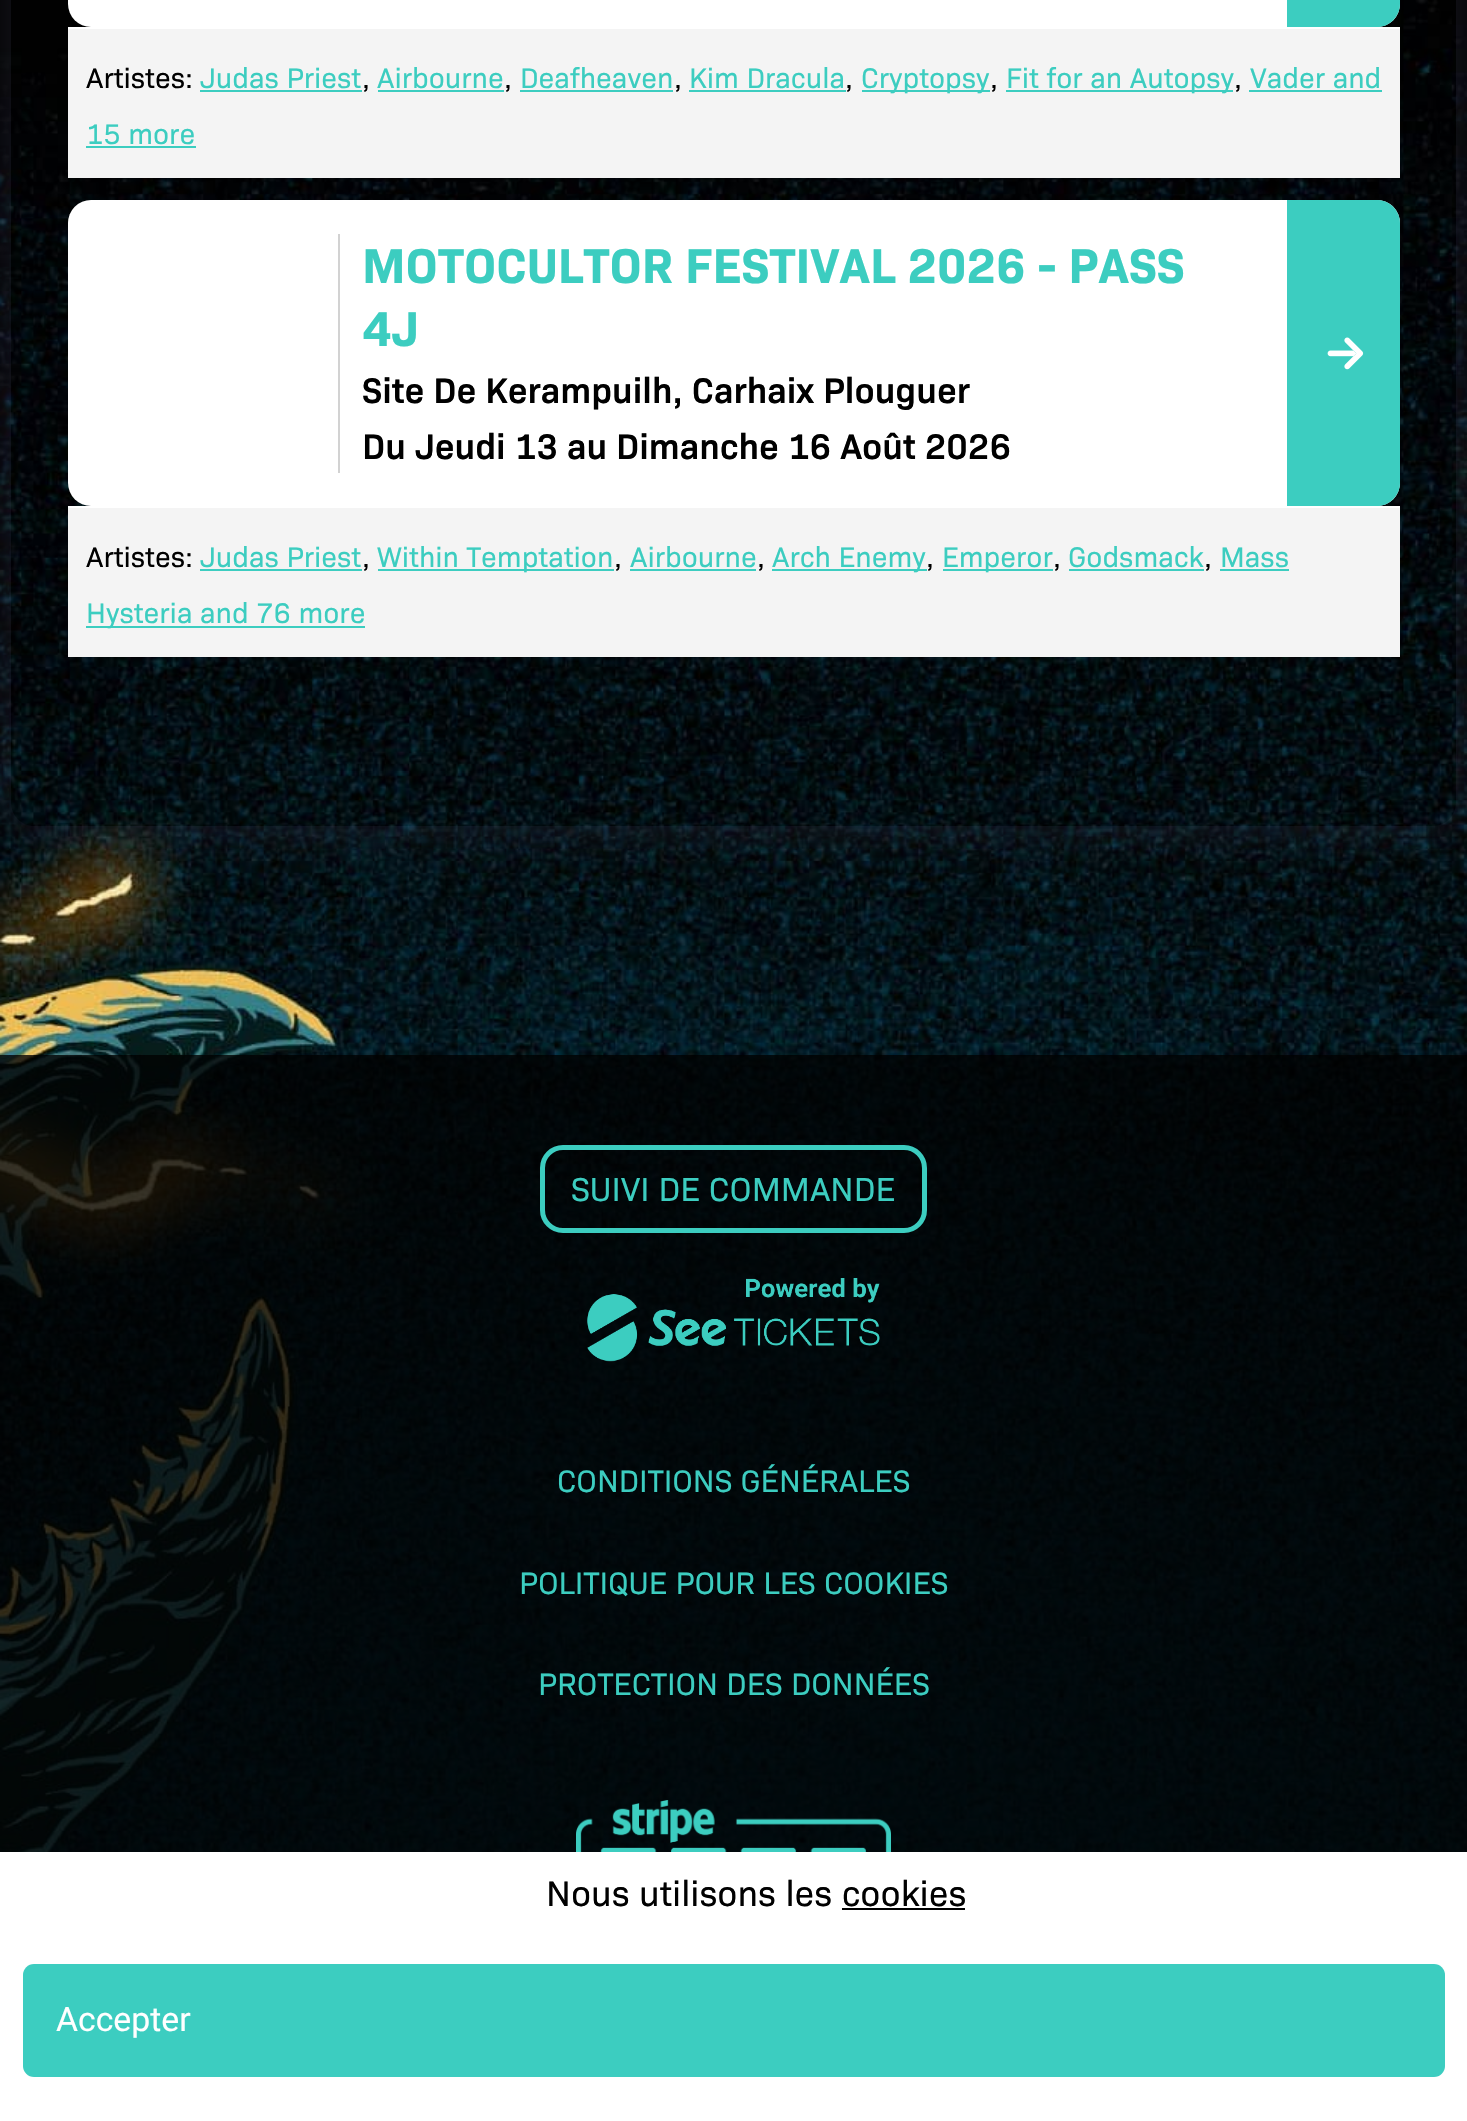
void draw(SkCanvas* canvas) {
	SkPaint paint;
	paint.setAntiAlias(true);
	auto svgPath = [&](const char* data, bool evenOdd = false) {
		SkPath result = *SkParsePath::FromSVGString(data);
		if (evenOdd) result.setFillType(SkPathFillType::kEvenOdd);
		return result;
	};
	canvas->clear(0xffffffff);
	canvas->drawImageRect(SkImages::DeferredFromEncodedData(SkData::MakeFromFileName("img1.png")), SkRect::MakeXYWH(0, 0, 1467, 1852), SkSamplingOptions());
	canvas->save();
	canvas->clipPath(svgPath("M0 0H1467V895H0ZM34-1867H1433C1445.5-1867 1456-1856.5 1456-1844V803C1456 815.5 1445.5 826 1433 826H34C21.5 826 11 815.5 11 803V-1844C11-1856.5 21.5-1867 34-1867Z", true), true);
	paint.setColor(0x337875a5);
	paint.setMaskFilter(SkMaskFilter::MakeBlur(kNormal_SkBlurStyle, 22.5));
	canvas->drawRoundRect(SkRect::MakeXYWH(11, -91, 1445, 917), 23, 23, paint);
	paint.setMaskFilter(nullptr);
	canvas->restore();
	paint.setColor(0x1a000000);
	canvas->drawRect(SkRect::MakeXYWH(687, 5, 563, 22), paint);
	paint.setColor(0xffffffff);
	canvas->drawRoundRect(SkRect::MakeXYWH(68, -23, 1332, 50), 23, 23, paint);
	paint.setColor(0xff3ccdc0);
	canvas->drawPath(svgPath("M1287-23H1377C1389.5-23 1400-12.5 1400 0V4C1400 16.5 1389.5 27 1377 27H1287Z"), paint);
	paint.setColor(0xfff4f4f4);
	canvas->drawRect(SkRect::MakeXYWH(68, 29, 1332, 149), paint);
	paint.setColor(0xffffffff);
	canvas->drawRect(SkRect::MakeXYWH(68, 27, 1332, 2), paint);
	SkFont f1(fontMgr->matchFamilyStyle("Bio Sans", SkFontStyle::Normal()), 28.75);
	f1.setSubpixel(true);
	paint.setColor(0xff000000);
	canvas->drawString("Artistes:", 86, 88, f1, paint);
	paint.setColor(0xff3ccdc0);
	canvas->drawString("Judas Priest", 200, 88, f1, paint);
	paint.setColor(0xff000000);
	canvas->drawString(",", 362, 88, f1, paint);
	paint.setColor(0xff3ccdc0);
	canvas->drawRect(SkRect::MakeXYWH(200, 90, 162, 2), paint);
	canvas->drawString("Airbourne", 377, 88, f1, paint);
	paint.setColor(0xff000000);
	canvas->drawString(",", 504, 88, f1, paint);
	paint.setColor(0xff3ccdc0);
	canvas->drawRect(SkRect::MakeXYWH(378, 90, 126, 2), paint);
	canvas->drawString("Deafheaven", 520, 88, f1, paint);
	paint.setColor(0xff000000);
	canvas->drawString(",", 674, 88, f1, paint);
	paint.setColor(0xff3ccdc0);
	canvas->drawRect(SkRect::MakeXYWH(520, 90, 153, 2), paint);
	canvas->drawString("Kim Dracula", 689, 88, f1, paint);
	paint.setColor(0xff000000);
	canvas->drawString(",", 845, 88, f1, paint);
	paint.setColor(0xff3ccdc0);
	canvas->drawRect(SkRect::MakeXYWH(689, 90, 157, 2), paint);
	canvas->drawRect(SkRect::MakeXYWH(862, 90, 128, 2), paint);
	canvas->drawString("Cryptopsy", 861, 88, f1, paint);
	paint.setColor(0xff000000);
	canvas->drawString(",", 990, 88, f1, paint);
	paint.setColor(0xff3ccdc0);
	canvas->drawRect(SkRect::MakeXYWH(1006, 90, 227, 2), paint);
	canvas->drawString("Fit for an Autopsy", 1006, 88, f1, paint);
	paint.setColor(0xff000000);
	canvas->drawString(",", 1234, 88, f1, paint);
	paint.setColor(0xff3ccdc0);
	canvas->drawRect(SkRect::MakeXYWH(1249, 90, 133, 2), paint);
	canvas->drawString("Vader and", 1250, 88, f1, paint);
	canvas->drawString("15 more", 86, 144, f1, paint);
	canvas->drawRect(SkRect::MakeXYWH(86, 146, 110, 2), paint);
	paint.setColor(0x1a000000);
	canvas->drawRect(SkRect::MakeXYWH(68, 200, 1332, 306), paint);
	paint.setColor(0xffffffff);
	canvas->drawRoundRect(SkRect::MakeXYWH(68, 200, 1332, 306), 23, 23, paint);
	paint.setColor(0xffd2d2d2);
	canvas->drawRect(SkRect::MakeXYWH(338, 234, 2, 239), paint);
	SkFont f2(fontMgr->matchFamilyStyle("Bio Sans", SkFontStyle::Bold()), 49.5);
	f2.setSubpixel(true);
	paint.setColor(0xff3ccdc0);
	canvas->drawString("MOTOCULTOR FESTIVAL 2026 - PASS", 362, 283, f2, paint);
	canvas->drawString("4J", 362, 346, f2, paint);
	SkFont f3(fontMgr->matchFamilyStyle("Bio Sans", SkFontStyle(600, SkFontStyle::kNormal_Width, SkFontStyle::kUpright_Slant)), 36);
	f3.setSubpixel(true);
	paint.setColor(0xff000000);
	canvas->drawString("Site De Kerampuilh, Carhaix Plouguer", 362, 403, f3, paint);
	canvas->drawString("Du Jeudi 13 au Dimanche 16 Août 2026", 362, 459, f3, paint);
	paint.setColor(0xff3ccdc0);
	canvas->drawPath(svgPath("M1287 200H1377C1389.5 200 1400 210.5 1400 223V483C1400 495.5 1389.5 506 1377 506H1287Z"), paint);
	canvas->drawImageRect(SkImages::DeferredFromEncodedData(SkData::MakeFromFileName("img2.png")), SkRect::MakeXYWH(1327, 337, 37, 33), SkSamplingOptions());
	paint.setColor(0xfff4f4f4);
	canvas->drawRect(SkRect::MakeXYWH(68, 508, 1332, 149), paint);
	paint.setColor(0xffffffff);
	canvas->drawRect(SkRect::MakeXYWH(68, 506, 1332, 2), paint);
	paint.setColor(0xff000000);
	canvas->drawString("Artistes:", 86, 567, f1, paint);
	paint.setColor(0xff3ccdc0);
	canvas->drawString("Judas Priest", 200, 567, f1, paint);
	paint.setColor(0xff000000);
	canvas->drawString(",", 362, 567, f1, paint);
	paint.setColor(0xff3ccdc0);
	canvas->drawRect(SkRect::MakeXYWH(200, 569, 162, 2), paint);
	canvas->drawRect(SkRect::MakeXYWH(378, 569, 236, 2), paint);
	canvas->drawString("Within Temptation", 377, 567, f1, paint);
	paint.setColor(0xff000000);
	canvas->drawString(",", 614, 567, f1, paint);
	paint.setColor(0xff3ccdc0);
	canvas->drawString("Airbourne", 630, 567, f1, paint);
	paint.setColor(0xff000000);
	canvas->drawString(",", 757, 567, f1, paint);
	paint.setColor(0xff3ccdc0);
	canvas->drawRect(SkRect::MakeXYWH(630, 569, 126, 2), paint);
	canvas->drawRect(SkRect::MakeXYWH(772, 569, 155, 2), paint);
	canvas->drawString("Arch Enemy", 772, 567, f1, paint);
	paint.setColor(0xff000000);
	canvas->drawString(",", 926, 567, f1, paint);
	paint.setColor(0xff3ccdc0);
	canvas->drawRect(SkRect::MakeXYWH(943, 569, 110, 2), paint);
	canvas->drawString("Emperor", 942, 567, f1, paint);
	paint.setColor(0xff000000);
	canvas->drawString(",", 1053, 567, f1, paint);
	paint.setColor(0xff3ccdc0);
	canvas->drawString("Godsmack", 1068, 567, f1, paint);
	paint.setColor(0xff000000);
	canvas->drawString(",", 1204, 567, f1, paint);
	paint.setColor(0xff3ccdc0);
	canvas->drawRect(SkRect::MakeXYWH(1069, 569, 135, 2), paint);
	canvas->drawRect(SkRect::MakeXYWH(1220, 569, 69, 2), paint);
	canvas->drawString("Mass", 1220, 567, f1, paint);
	canvas->drawRect(SkRect::MakeXYWH(86, 626, 279, 2), paint);
	canvas->drawString("Hysteria and 76 more", 86, 623, f1, paint);
	paint.setColor(0xc9000000);
	canvas->drawRect(SkRect::MakeXYWH(0, 1055, 1467, 797), paint);
	paint.setStroke(true);
	paint.setStrokeWidth(5);
	paint.setColor(0xff3ccdc0);
	canvas->drawRoundRect(SkRect::MakeXYWH(542.5, 1147.5, 382, 83), 20.5, 20.5, paint);
	SkFont f4(fontMgr->matchFamilyStyle("Bio Sans", SkFontStyle::Normal()), 33.75);
	f4.setSubpixel(true);
	paint.setStroke(false);
	canvas->drawString("SUIVI DE COMMANDE", 571, 1201, f4, paint);
	canvas->drawImageRect(SkImages::DeferredFromEncodedData(SkData::MakeFromFileName("img3.png")), SkRect::MakeXYWH(587, 1278, 293, 84), SkSamplingOptions());
	SkFont f5(fontMgr->matchFamilyStyle("Bio Sans", SkFontStyle::Normal()), 31.5);
	f5.setSubpixel(true);
	canvas->drawString("CONDITIONS GÉNÉRALES", 557, 1492, f5, paint);
	canvas->drawString("POLITIQUE POUR LES COOKIES", 519, 1594, f5, paint);
	canvas->drawString("PROTECTION DES DONNÉES", 538, 1695, f5, paint);
	canvas->drawImageRect(SkImages::DeferredFromEncodedData(SkData::MakeFromFileName("img4.png")), SkRect::MakeXYWH(576, 1800, 315, 52), SkSamplingOptions());
	SkFont f6(fontMgr->matchFamilyStyle("Bio Sans", SkFontStyle::Normal()), 36);
	f6.setSubpixel(true);
	paint.setColor(0xff000000);
	canvas->drawString("Nous utilisons les cookies", 546, 1906, f6, paint);
	canvas->drawRect(SkRect::MakeXYWH(842, 1908, 123, 2), paint);
	paint.setColor(0xff3ccdc0);
	canvas->drawRoundRect(SkRect::MakeXYWH(23, 1964, 1422, 113), 11, 11, paint);
	SkFont f7(fontMgr->matchFamilyStyle("Roboto", SkFontStyle::Normal()), 33.75);
	f7.setSubpixel(true);
	paint.setColor(0xffffffff);
	canvas->drawString("Accepter", 56, 2031, f7, paint);
}
